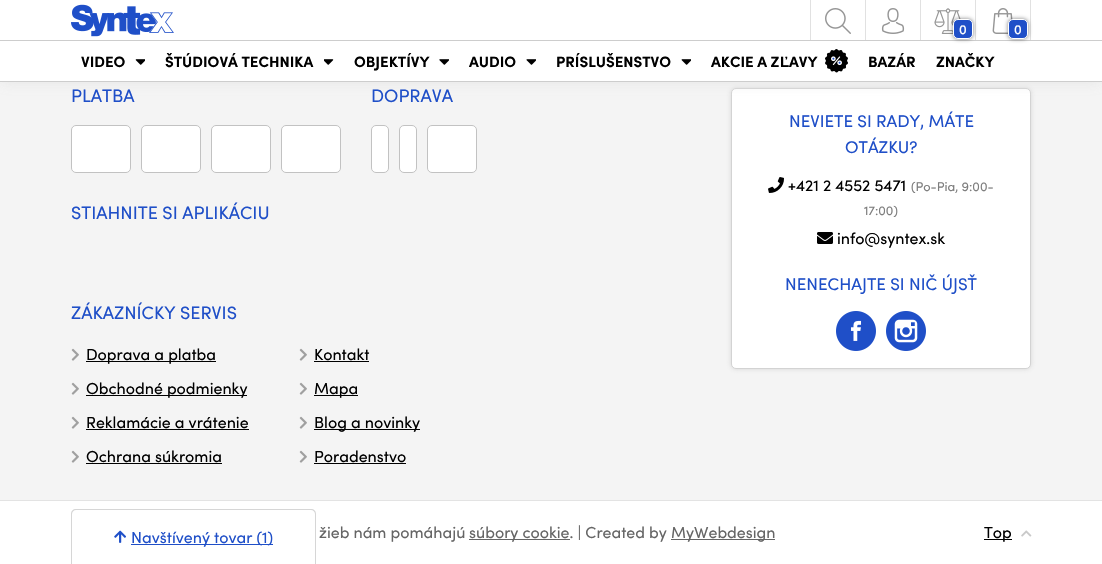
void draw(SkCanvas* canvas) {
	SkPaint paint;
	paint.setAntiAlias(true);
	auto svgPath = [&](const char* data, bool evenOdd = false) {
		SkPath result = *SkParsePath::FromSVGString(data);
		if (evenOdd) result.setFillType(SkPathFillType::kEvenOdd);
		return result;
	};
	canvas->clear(0xfff4f4f4);
	paint.setColor(0x80b6b6b6);
	paint.setMaskFilter(SkMaskFilter::MakeBlur(kNormal_SkBlurStyle, 2.5));
	canvas->drawRoundRect(SkRect::MakeXYWH(731, 88, 300, 281), 5, 5, paint);
	paint.setMaskFilter(nullptr);
	paint.setColor(0xffffffff);
	canvas->drawRoundRect(SkRect::MakeXYWH(731.5, 88.5, 299, 280), 4.5, 4.5, paint);
	paint.setStroke(true);
	paint.setStrokeWidth(1);
	paint.setColor(0xffd3d3d3);
	canvas->drawRoundRect(SkRect::MakeXYWH(731.5, 88.5, 299, 280), 4.5, 4.5, paint);
	paint.setStroke(false);
	paint.setColor(0xe6e3e3e3);
	paint.setMaskFilter(SkMaskFilter::MakeBlur(kNormal_SkBlurStyle, 7));
	canvas->drawRect(SkRect::MakeXYWH(0, 0, 1102, 82), paint);
	paint.setMaskFilter(nullptr);
	paint.setColor(0xffffffff);
	canvas->drawRect(SkRect::MakeXYWH(0, 0, 1102, 81), paint);
	paint.setColor(0xffcdcdcd);
	canvas->drawRect(SkRect::MakeXYWH(0, 81, 1102, 1), paint);
	canvas->drawImageRect(SkImages::DeferredFromEncodedData(SkData::MakeFromFileName("img1.png")), SkRect::MakeXYWH(71, 4, 103, 33), SkSamplingOptions());
	paint.setColor(0xffe1e1e1);
	canvas->drawRect(SkRect::MakeXYWH(810, 0, 1, 40), paint);
	canvas->drawRect(SkRect::MakeXYWH(865, 0, 1, 40), paint);
	canvas->drawImageRect(SkImages::DeferredFromEncodedData(SkData::MakeFromFileName("img2.png")), SkRect::MakeXYWH(825, 8, 26, 26), SkSamplingOptions());
	canvas->drawRect(SkRect::MakeXYWH(920, 0, 1, 40), paint);
	canvas->drawImageRect(SkImages::DeferredFromEncodedData(SkData::MakeFromFileName("img3.png")), SkRect::MakeXYWH(881, 8, 24, 26), SkSamplingOptions());
	canvas->drawRect(SkRect::MakeXYWH(975, 0, 1, 40), paint);
	canvas->drawImageRect(SkImages::DeferredFromEncodedData(SkData::MakeFromFileName("img4.png")), SkRect::MakeXYWH(934, 8, 27, 26), SkSamplingOptions());
	paint.setColor(0xffcdcdcd);
	canvas->drawRect(SkRect::MakeXYWH(0, 40, 1102, 1), paint);
	paint.setColor(0x80000000);
	paint.setMaskFilter(SkMaskFilter::MakeBlur(kNormal_SkBlurStyle, 2));
	canvas->drawRoundRect(SkRect::MakeXYWH(953, 19, 20, 20), 5, 5, paint);
	paint.setMaskFilter(nullptr);
	paint.setColor(0xff1f4fc8);
	canvas->drawRoundRect(SkRect::MakeXYWH(953.5, 19.5, 19, 19), 4.5, 4.5, paint);
	paint.setStroke(true);
	paint.setColor(0xffffffff);
	canvas->drawRoundRect(SkRect::MakeXYWH(953.5, 19.5, 19, 19), 4.5, 4.5, paint);
	SkFont f1(fontMgr->matchFamilyStyle("Sofia", SkFontStyle(500, SkFontStyle::kNormal_Width, SkFontStyle::kUpright_Slant)), 13);
	f1.setSubpixel(true);
	paint.setStroke(false);
	canvas->drawString("0", 959, 34, f1, paint);
	paint.setColor(0xffe1e1e1);
	canvas->drawRect(SkRect::MakeXYWH(1030, 0, 1, 40), paint);
	canvas->drawImageRect(SkImages::DeferredFromEncodedData(SkData::MakeFromFileName("img5.png")), SkRect::MakeXYWH(992, 8, 21, 26), SkSamplingOptions());
	paint.setColor(0x80000000);
	paint.setMaskFilter(SkMaskFilter::MakeBlur(kNormal_SkBlurStyle, 2));
	canvas->drawRoundRect(SkRect::MakeXYWH(1008, 19, 20, 20), 5, 5, paint);
	paint.setMaskFilter(nullptr);
	paint.setColor(0xff1f4fc8);
	canvas->drawRoundRect(SkRect::MakeXYWH(1008.5, 19.5, 19, 19), 4.5, 4.5, paint);
	paint.setStroke(true);
	paint.setColor(0xffffffff);
	canvas->drawRoundRect(SkRect::MakeXYWH(1008.5, 19.5, 19, 19), 4.5, 4.5, paint);
	paint.setStroke(false);
	canvas->drawString("0", 1014, 34, f1, paint);
	SkFont f2(fontMgr->matchFamilyStyle("Sofia", SkFontStyle::Bold()), 15);
	f2.setSubpixel(true);
	paint.setColor(0xff000000);
	canvas->drawString("VIDEO", 81, 67, f2, paint);
	canvas->drawImageRect(SkImages::DeferredFromEncodedData(SkData::MakeFromFileName("img6.png")), SkRect::MakeXYWH(135, 59, 10, 6), SkSamplingOptions());
	canvas->drawString("ŠTÚDIOVÁ TECHNIKA", 165, 67, f2, paint);
	canvas->drawImageRect(SkImages::DeferredFromEncodedData(SkData::MakeFromFileName("img7.png")), SkRect::MakeXYWH(324, 59, 10, 6), SkSamplingOptions());
	canvas->drawString("OBJEKTÍVY", 354, 67, f2, paint);
	canvas->drawImageRect(SkImages::DeferredFromEncodedData(SkData::MakeFromFileName("img8.png")), SkRect::MakeXYWH(439, 59, 10, 6), SkSamplingOptions());
	canvas->drawString("AUDIO", 469, 67, f2, paint);
	canvas->drawImageRect(SkImages::DeferredFromEncodedData(SkData::MakeFromFileName("img9.png")), SkRect::MakeXYWH(526, 59, 10, 6), SkSamplingOptions());
	canvas->drawString("PRÍSLUŠENSTVO", 556, 67, f2, paint);
	canvas->drawImageRect(SkImages::DeferredFromEncodedData(SkData::MakeFromFileName("img10.png")), SkRect::MakeXYWH(681, 59, 10, 6), SkSamplingOptions());
	canvas->drawString("AKCIE A Z", 711, 67, f2, paint);
	SkFont f3(fontMgr->matchFamilyStyle("Liberation Sans", SkFontStyle::Bold()), 15);
	f3.setSubpixel(true);
	canvas->drawString("Ľ", 780, 67, f3, paint);
	canvas->drawString("AVY", 789, 67, f2, paint);
	canvas->drawImageRect(SkImages::DeferredFromEncodedData(SkData::MakeFromFileName("img11.png")), SkRect::MakeXYWH(825, 49, 23, 24), SkSamplingOptions());
	canvas->drawString("BAZÁR", 868, 67, f2, paint);
	canvas->drawString("ZNAČKY", 936, 67, f2, paint);
	SkFont f4(fontMgr->matchFamilyStyle("Sofia", SkFontStyle::Normal()), 18);
	f4.setSubpixel(true);
	paint.setColor(0xff1f4fc8);
	canvas->drawString("PLATBA", 71, 102, f4, paint);
	paint.setColor(0xffffffff);
	canvas->drawRoundRect(SkRect::MakeXYWH(71.5, 125.5, 59, 47), 4.5, 4.5, paint);
	paint.setStroke(true);
	paint.setColor(0xffc2c2c2);
	canvas->drawRoundRect(SkRect::MakeXYWH(71.5, 125.5, 59, 47), 4.5, 4.5, paint);
	paint.setStroke(false);
	paint.setColor(0xffffffff);
	canvas->drawRoundRect(SkRect::MakeXYWH(141.5, 125.5, 59, 47), 4.5, 4.5, paint);
	paint.setStroke(true);
	paint.setColor(0xffc2c2c2);
	canvas->drawRoundRect(SkRect::MakeXYWH(141.5, 125.5, 59, 47), 4.5, 4.5, paint);
	paint.setStroke(false);
	paint.setColor(0xffffffff);
	canvas->drawRoundRect(SkRect::MakeXYWH(211.5, 125.5, 59, 47), 4.5, 4.5, paint);
	paint.setStroke(true);
	paint.setColor(0xffc2c2c2);
	canvas->drawRoundRect(SkRect::MakeXYWH(211.5, 125.5, 59, 47), 4.5, 4.5, paint);
	paint.setStroke(false);
	paint.setColor(0xffffffff);
	canvas->drawRoundRect(SkRect::MakeXYWH(281.5, 125.5, 59, 47), 4.5, 4.5, paint);
	paint.setStroke(true);
	paint.setColor(0xffc2c2c2);
	canvas->drawRoundRect(SkRect::MakeXYWH(281.5, 125.5, 59, 47), 4.5, 4.5, paint);
	paint.setStroke(false);
	paint.setColor(0xff1f4fc8);
	canvas->drawString("DOPRAVA", 371, 102, f4, paint);
	paint.setColor(0xffffffff);
	canvas->drawRoundRect(SkRect::MakeXYWH(371.5, 125.5, 17, 47), 4.5, 4.5, paint);
	paint.setStroke(true);
	paint.setColor(0xffc2c2c2);
	canvas->drawRoundRect(SkRect::MakeXYWH(371.5, 125.5, 17, 47), 4.5, 4.5, paint);
	paint.setStroke(false);
	paint.setColor(0xffffffff);
	canvas->drawRoundRect(SkRect::MakeXYWH(399.5, 125.5, 17, 47), 4.5, 4.5, paint);
	paint.setStroke(true);
	paint.setColor(0xffc2c2c2);
	canvas->drawRoundRect(SkRect::MakeXYWH(399.5, 125.5, 17, 47), 4.5, 4.5, paint);
	paint.setStroke(false);
	paint.setColor(0xffffffff);
	canvas->drawRoundRect(SkRect::MakeXYWH(427.5, 125.5, 49, 47), 4.5, 4.5, paint);
	paint.setStroke(true);
	paint.setColor(0xffc2c2c2);
	canvas->drawRoundRect(SkRect::MakeXYWH(427.5, 125.5, 49, 47), 4.5, 4.5, paint);
	paint.setStroke(false);
	paint.setColor(0xff1f4fc8);
	canvas->drawString("STIAHNITE SI APLIKÁCIU", 71, 219, f4, paint);
	canvas->drawString("ZÁKAZNÍCKY SERVIS", 71, 319, f4, paint);
	canvas->drawImageRect(SkImages::DeferredFromEncodedData(SkData::MakeFromFileName("img12.png")), SkRect::MakeXYWH(71, 348, 8, 13), SkSamplingOptions());
	paint.setColor(0xff000000);
	canvas->drawRect(SkRect::MakeXYWH(86, 361, 130, 1), paint);
	SkFont f5(fontMgr->matchFamilyStyle("Sofia", SkFontStyle::Normal()), 16);
	f5.setSubpixel(true);
	canvas->drawString("Doprava a platba", 86, 360, f5, paint);
	canvas->drawImageRect(SkImages::DeferredFromEncodedData(SkData::MakeFromFileName("img12.png")), SkRect::MakeXYWH(71, 382, 8, 13), SkSamplingOptions());
	canvas->drawRect(SkRect::MakeXYWH(86, 395, 161, 1), paint);
	canvas->drawString("Obchodné podmienky", 86, 394, f5, paint);
	canvas->drawImageRect(SkImages::DeferredFromEncodedData(SkData::MakeFromFileName("img12.png")), SkRect::MakeXYWH(71, 416, 8, 13), SkSamplingOptions());
	canvas->drawString("Reklamácie a vrátenie", 86, 428, f5, paint);
	canvas->drawRect(SkRect::MakeXYWH(86, 429, 163, 1), paint);
	canvas->drawImageRect(SkImages::DeferredFromEncodedData(SkData::MakeFromFileName("img12.png")), SkRect::MakeXYWH(71, 450, 8, 13), SkSamplingOptions());
	canvas->drawString("Ochrana súkromia", 86, 462, f5, paint);
	canvas->drawRect(SkRect::MakeXYWH(86, 463, 136, 1), paint);
	canvas->drawImageRect(SkImages::DeferredFromEncodedData(SkData::MakeFromFileName("img12.png")), SkRect::MakeXYWH(299, 348, 8, 13), SkSamplingOptions());
	canvas->drawString("Kontakt", 314, 360, f5, paint);
	canvas->drawRect(SkRect::MakeXYWH(314, 361, 55, 1), paint);
	canvas->drawImageRect(SkImages::DeferredFromEncodedData(SkData::MakeFromFileName("img12.png")), SkRect::MakeXYWH(299, 382, 8, 13), SkSamplingOptions());
	canvas->drawRect(SkRect::MakeXYWH(314, 395, 44, 1), paint);
	canvas->drawString("Mapa", 314, 394, f5, paint);
	canvas->drawImageRect(SkImages::DeferredFromEncodedData(SkData::MakeFromFileName("img12.png")), SkRect::MakeXYWH(299, 416, 8, 13), SkSamplingOptions());
	canvas->drawRect(SkRect::MakeXYWH(314, 429, 106, 1), paint);
	canvas->drawString("Blog a novinky", 314, 428, f5, paint);
	canvas->drawImageRect(SkImages::DeferredFromEncodedData(SkData::MakeFromFileName("img12.png")), SkRect::MakeXYWH(299, 450, 8, 13), SkSamplingOptions());
	canvas->drawString("Poradenstvo", 314, 462, f5, paint);
	canvas->drawRect(SkRect::MakeXYWH(314, 463, 92, 1), paint);
	SkFont f6(fontMgr->matchFamilyStyle("Sofia", SkFontStyle::Normal()), 17);
	f6.setSubpixel(true);
	paint.setColor(0xff1f4fc8);
	canvas->drawString("NEVIETE SI RADY, MÁTE", 789, 127, f6, paint);
	canvas->drawString("OTÁZKU?", 845, 153, f6, paint);
	canvas->drawImageRect(SkImages::DeferredFromEncodedData(SkData::MakeFromFileName("img13.png")), SkRect::MakeXYWH(768, 177, 16, 16), SkSamplingOptions());
	paint.setColor(0xff000000);
	canvas->drawString("+421 2 4552 5471", 788, 191, f5, paint);
	SkFont f7(fontMgr->matchFamilyStyle("Sofia", SkFontStyle::Normal()), 12.75);
	f7.setSubpixel(true);
	paint.setColor(0xff7e7e7e);
	canvas->drawString("(Po-Pia, 9:00-", 911, 191, f7, paint);
	canvas->drawString("17:00)", 864, 215, f7, paint);
	canvas->drawImageRect(SkImages::DeferredFromEncodedData(SkData::MakeFromFileName("img14.png")), SkRect::MakeXYWH(817, 232, 16, 12), SkSamplingOptions());
	paint.setColor(0xff000000);
	canvas->drawString("info@syntex.sk", 837, 244, f5, paint);
	paint.setColor(0xff1f4fc8);
	canvas->drawString("NENECHAJTE SI NIČ ÚJSŤ", 785, 290, f6, paint);
	canvas->drawImageRect(SkImages::DeferredFromEncodedData(SkData::MakeFromFileName("img15.png")), SkRect::MakeXYWH(836, 311, 40, 40), SkSamplingOptions());
	canvas->drawImageRect(SkImages::DeferredFromEncodedData(SkData::MakeFromFileName("img16.png")), SkRect::MakeXYWH(886, 311, 40, 40), SkSamplingOptions());
	paint.setColor(0xffffffff);
	canvas->drawRect(SkRect::MakeXYWH(0, 501, 1102, 63), paint);
	paint.setColor(0xffe3e3e3);
	canvas->drawRect(SkRect::MakeXYWH(0, 500, 1102, 1), paint);
	paint.setColor(0xff656565);
	canvas->drawString("žieb nám pomáhajú", 319, 538, f5, paint);
	canvas->drawRect(SkRect::MakeXYWH(469, 539, 101, 1), paint);
	canvas->drawString("súbory cookie. | Created by", 469, 538, f5, paint);
	canvas->drawRect(SkRect::MakeXYWH(671, 539, 104, 1), paint);
	canvas->drawString("MyWebdesign", 671, 538, f5, paint);
	paint.setColor(0xff000000);
	canvas->drawRect(SkRect::MakeXYWH(984, 539, 28, 1), paint);
	canvas->drawString("Top", 984, 538, f5, paint);
	canvas->drawImageRect(SkImages::DeferredFromEncodedData(SkData::MakeFromFileName("img17.png")), SkRect::MakeXYWH(1021, 530, 11, 7), SkSamplingOptions());
	paint.setColor(0xffd6d6d6);
	canvas->drawPath(svgPath("M76 509H311C314 509 316 511 316 514V564H71V514C71 511 73 509 76 509ZM76 510H311C313 510 315 512 315 514V564H72V514C72 512 74 510 76 510Z", true), paint);
	canvas->drawImageRect(SkImages::DeferredFromEncodedData(SkData::MakeFromFileName("img18.png")), SkRect::MakeXYWH(114, 530, 12, 13), SkSamplingOptions());
	paint.setColor(0xff1f4fc8);
	canvas->drawRect(SkRect::MakeXYWH(131, 544, 142, 1), paint);
	canvas->drawString("Navštívený tovar (1)", 131, 543, f5, paint);
}
